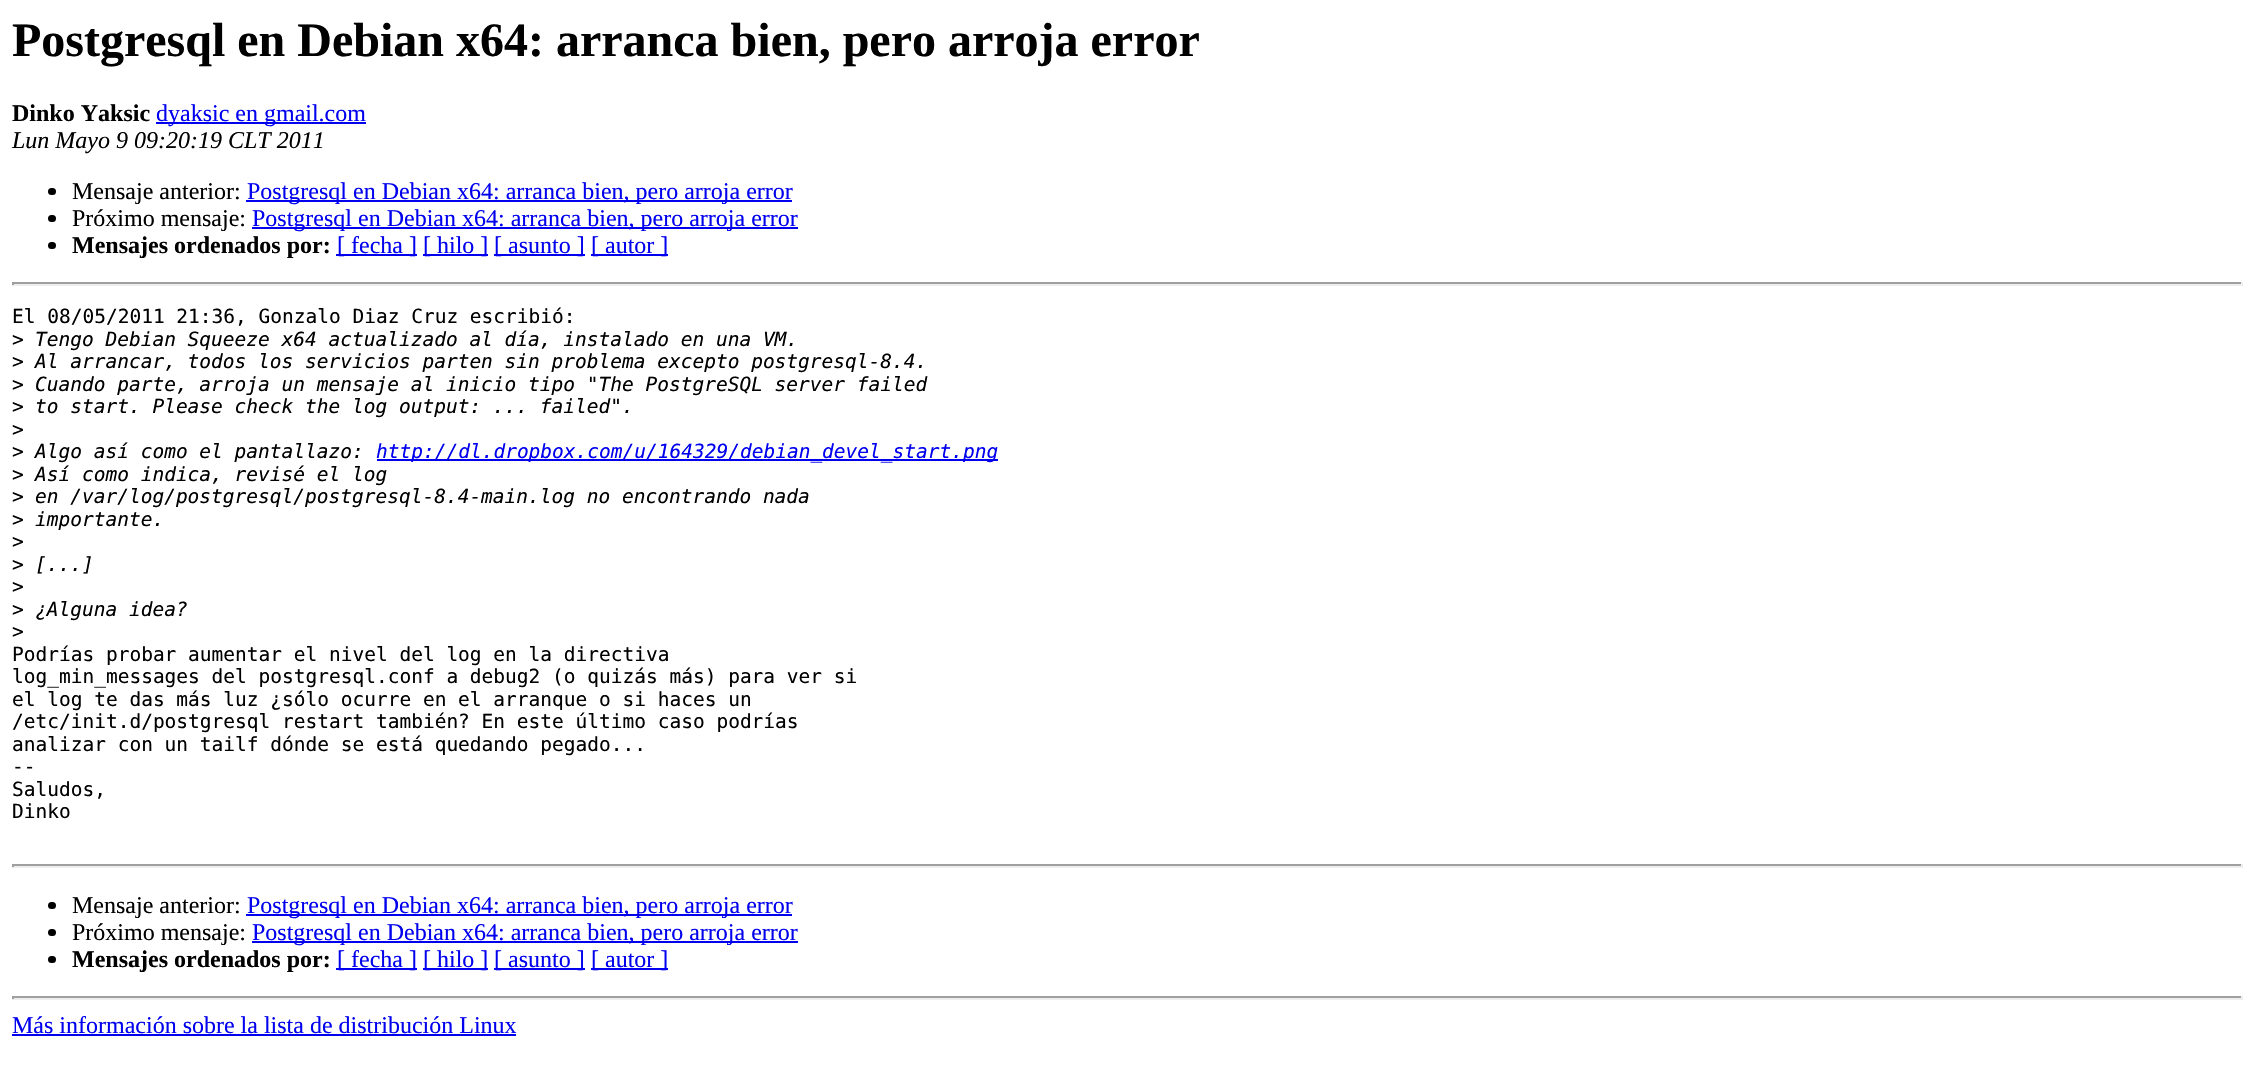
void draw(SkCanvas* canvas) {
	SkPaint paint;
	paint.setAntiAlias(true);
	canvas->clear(0xffffffff);
	SkFont f1(fontMgr->matchFamilyStyle("Liberation Serif", SkFontStyle::Bold()), 48);
	f1.setSubpixel(true);
	paint.setColor(0xff000000);
	canvas->drawString("Postgresql en Debian x64: arranca bien, pero arroja error", 12, 56, f1, paint);
	SkFont f2(fontMgr->matchFamilyStyle("Liberation Serif", SkFontStyle::Bold()), 24);
	f2.setSubpixel(true);
	canvas->drawString("Dinko Yaksic", 12, 121, f2, paint);
	paint.setColor(0xff0000ee);
	canvas->drawRect(SkRect::MakeXYWH(156, 122, 210, 2), paint);
	SkFont f3(fontMgr->matchFamilyStyle("Liberation Serif", SkFontStyle::Normal()), 24);
	f3.setSubpixel(true);
	canvas->drawString("dyaksic en gmail.com", 156, 121, f3, paint);
	SkFont f4(fontMgr->matchFamilyStyle("Liberation Serif", SkFontStyle::Italic()), 24);
	f4.setSubpixel(true);
	paint.setColor(0xff000000);
	canvas->drawString("Lun Mayo 9 09:20:19 CLT 2011", 12, 148, f4, paint);
	canvas->drawRoundRect(SkRect::MakeXYWH(48, 188, 8, 7), 3.5, 3.5, paint);
	canvas->drawString("Mensaje anterior:", 72, 199, f3, paint);
	paint.setColor(0xff0000ee);
	canvas->drawRect(SkRect::MakeXYWH(246, 200, 546, 2), paint);
	canvas->drawString("Postgresql en Debian x64: arranca bien, pero arroja error", 247, 199, f3, paint);
	paint.setColor(0xff000000);
	canvas->drawRoundRect(SkRect::MakeXYWH(48, 215, 8, 7), 3.5, 3.5, paint);
	canvas->drawString("Próximo mensaje:", 72, 226, f3, paint);
	paint.setColor(0xff0000ee);
	canvas->drawRect(SkRect::MakeXYWH(252, 227, 546, 2), paint);
	canvas->drawString("Postgresql en Debian x64: arranca bien, pero arroja error", 252, 226, f3, paint);
	paint.setColor(0xff000000);
	canvas->drawRoundRect(SkRect::MakeXYWH(48, 242, 8, 7), 3.5, 3.5, paint);
	canvas->drawString("Mensajes ordenados por:", 72, 253, f2, paint);
	paint.setColor(0xff0000ee);
	canvas->drawRect(SkRect::MakeXYWH(336, 254, 81, 2), paint);
	canvas->drawString("[ fecha ]", 337, 253, f3, paint);
	canvas->drawRect(SkRect::MakeXYWH(423, 254, 65, 2), paint);
	canvas->drawString("[ hilo ]", 423, 253, f3, paint);
	canvas->drawRect(SkRect::MakeXYWH(494, 254, 91, 2), paint);
	canvas->drawString("[ asunto ]", 494, 253, f3, paint);
	canvas->drawRect(SkRect::MakeXYWH(591, 254, 77, 2), paint);
	canvas->drawString("[ autor ]", 591, 253, f3, paint);
	paint.setColor(0xff9f9f9f);
	canvas->drawRect(SkRect::MakeXYWH(12, 282, 2231, 2), paint);
	paint.setColor(0xffeeeeee);
	canvas->drawRect(SkRect::MakeXYWH(2241, 282, 2, 3), paint);
	canvas->drawRect(SkRect::MakeXYWH(12, 284, 2231, 2), paint);
	paint.setColor(0xff9f9f9f);
	canvas->drawRect(SkRect::MakeXYWH(12, 282, 2, 3), paint);
	SkFont f5(fontMgr->matchFamilyStyle("DejaVu Sans Mono", SkFontStyle::Normal()), 19.5);
	f5.setSubpixel(true);
	paint.setColor(0xff000000);
	canvas->drawString("El 08/05/2011 21:36, Gonzalo Diaz Cruz escribió:", 12, 323, f5, paint);
	canvas->drawString(">", 12, 346, f5, paint);
	SkFont f6(fontMgr->matchFamilyStyle("DejaVu Sans Mono", SkFontStyle::Italic()), 19.5);
	f6.setSubpixel(true);
	canvas->drawString("Tengo Debian Squeeze x64 actualizado al día, instalado en una VM.", 35, 346, f6, paint);
	canvas->drawString(">", 12, 368, f5, paint);
	canvas->drawString("Al arrancar, todos los servicios parten sin problema excepto postgresql-8.4.", 35, 368, f6, paint);
	canvas->drawString(">", 12, 391, f5, paint);
	canvas->drawString("Cuando parte, arroja un mensaje al inicio tipo \"The PostgreSQL server failed", 35, 391, f6, paint);
	canvas->drawString(">", 12, 413, f5, paint);
	canvas->drawString("to start. Please check the log output: ... failed\".", 35, 413, f6, paint);
	canvas->drawString(">", 12, 436, f5, paint);
	canvas->drawString(">", 12, 458, f5, paint);
	canvas->drawString("Algo así como el pantallazo:", 35, 458, f6, paint);
	paint.setColor(0xff0000ee);
	canvas->drawRect(SkRect::MakeXYWH(377, 459, 621, 2), paint);
	canvas->drawString("http://dl.dropbox.com/u/164329/debian_devel_start.png", 376, 458, f6, paint);
	paint.setColor(0xff000000);
	canvas->drawString(">", 12, 481, f5, paint);
	canvas->drawString("Así como indica, revisé el log", 35, 481, f6, paint);
	canvas->drawString(">", 12, 503, f5, paint);
	canvas->drawString("en /var/log/postgresql/postgresql-8.4-main.log no encontrando nada", 35, 503, f6, paint);
	canvas->drawString(">", 12, 526, f5, paint);
	canvas->drawString("importante.", 35, 526, f6, paint);
	canvas->drawString(">", 12, 548, f5, paint);
	canvas->drawString(">", 12, 571, f5, paint);
	canvas->drawString("[...]", 35, 571, f6, paint);
	canvas->drawString(">", 12, 593, f5, paint);
	canvas->drawString(">", 12, 616, f5, paint);
	canvas->drawString("¿Alguna idea?", 35, 616, f6, paint);
	canvas->drawString(">", 12, 638, f5, paint);
	canvas->drawString("Podrías probar aumentar el nivel del log en la directiva", 12, 661, f5, paint);
	canvas->drawString("log_min_messages del postgresql.conf a debug2 (o quizás más) para ver si", 12, 683, f5, paint);
	canvas->drawString("el log te das más luz ¿sólo ocurre en el arranque o si haces un", 12, 706, f5, paint);
	canvas->drawString("/etc/init.d/postgresql restart también? En este último caso podrías", 12, 728, f5, paint);
	canvas->drawString("analizar con un tailf dónde se está quedando pegado...", 12, 751, f5, paint);
	canvas->drawString("--", 12, 773, f5, paint);
	canvas->drawString("Saludos,", 12, 796, f5, paint);
	canvas->drawString("Dinko", 12, 818, f5, paint);
	paint.setColor(0xff9f9f9f);
	canvas->drawRect(SkRect::MakeXYWH(12, 864, 2231, 2), paint);
	paint.setColor(0xffeeeeee);
	canvas->drawRect(SkRect::MakeXYWH(2241, 864, 2, 3), paint);
	canvas->drawRect(SkRect::MakeXYWH(12, 866, 2231, 2), paint);
	paint.setColor(0xff9f9f9f);
	canvas->drawRect(SkRect::MakeXYWH(12, 864, 2, 3), paint);
	paint.setColor(0xff000000);
	canvas->drawRoundRect(SkRect::MakeXYWH(48, 902, 8, 7), 3.5, 3.5, paint);
	canvas->drawString("Mensaje anterior:", 72, 913, f3, paint);
	paint.setColor(0xff0000ee);
	canvas->drawRect(SkRect::MakeXYWH(246, 914, 546, 2), paint);
	canvas->drawString("Postgresql en Debian x64: arranca bien, pero arroja error", 247, 913, f3, paint);
	paint.setColor(0xff000000);
	canvas->drawRoundRect(SkRect::MakeXYWH(48, 929, 8, 7), 3.5, 3.5, paint);
	canvas->drawString("Próximo mensaje:", 72, 940, f3, paint);
	paint.setColor(0xff0000ee);
	canvas->drawRect(SkRect::MakeXYWH(252, 941, 546, 2), paint);
	canvas->drawString("Postgresql en Debian x64: arranca bien, pero arroja error", 252, 940, f3, paint);
	paint.setColor(0xff000000);
	canvas->drawRoundRect(SkRect::MakeXYWH(48, 956, 8, 7), 3.5, 3.5, paint);
	canvas->drawString("Mensajes ordenados por:", 72, 967, f2, paint);
	paint.setColor(0xff0000ee);
	canvas->drawRect(SkRect::MakeXYWH(336, 968, 81, 2), paint);
	canvas->drawString("[ fecha ]", 337, 967, f3, paint);
	canvas->drawRect(SkRect::MakeXYWH(423, 968, 65, 2), paint);
	canvas->drawString("[ hilo ]", 423, 967, f3, paint);
	canvas->drawRect(SkRect::MakeXYWH(494, 968, 91, 2), paint);
	canvas->drawString("[ asunto ]", 494, 967, f3, paint);
	canvas->drawRect(SkRect::MakeXYWH(591, 968, 77, 2), paint);
	canvas->drawString("[ autor ]", 591, 967, f3, paint);
	paint.setColor(0xff9f9f9f);
	canvas->drawRect(SkRect::MakeXYWH(12, 996, 2231, 2), paint);
	paint.setColor(0xffeeeeee);
	canvas->drawRect(SkRect::MakeXYWH(2241, 996, 2, 3), paint);
	canvas->drawRect(SkRect::MakeXYWH(12, 998, 2231, 2), paint);
	paint.setColor(0xff9f9f9f);
	canvas->drawRect(SkRect::MakeXYWH(12, 996, 2, 3), paint);
	paint.setColor(0xff0000ee);
	canvas->drawString("Más información sobre la lista de distribución Linux", 12, 1033, f3, paint);
	canvas->drawRect(SkRect::MakeXYWH(12, 1034, 504, 2), paint);
}
